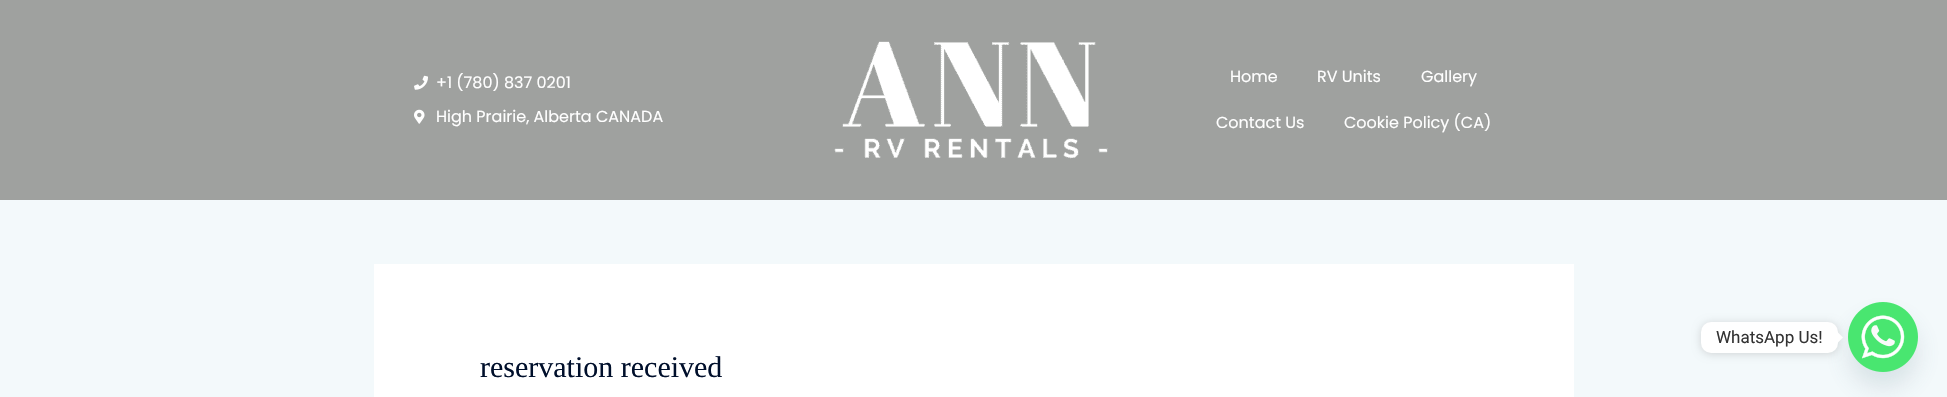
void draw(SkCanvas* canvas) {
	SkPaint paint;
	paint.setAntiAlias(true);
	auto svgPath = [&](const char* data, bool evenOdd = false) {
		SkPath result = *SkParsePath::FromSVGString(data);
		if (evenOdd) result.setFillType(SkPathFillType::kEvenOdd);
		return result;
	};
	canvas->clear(0xfff3f9fb);
	paint.setColor(0xff9fa19f);
	canvas->drawRect(SkRect::MakeXYWH(0, 0, 1947, 200), paint);
	canvas->drawImageRect(SkImages::DeferredFromEncodedData(SkData::MakeFromFileName("img1.png")), SkRect::MakeXYWH(414, 75, 14, 15), SkSamplingOptions());
	SkFont f1(fontMgr->matchFamilyStyle("Poppins", SkFontStyle::Normal()), 16);
	f1.setSubpixel(true);
	paint.setColor(0xffffffff);
	canvas->drawString("+1 (780) 837 0201", 436, 88, f1, paint);
	canvas->drawImageRect(SkImages::DeferredFromEncodedData(SkData::MakeFromFileName("img2.png")), SkRect::MakeXYWH(414, 109, 11, 15), SkSamplingOptions());
	canvas->drawString("High Prairie, Alberta CANADA", 436, 122, f1, paint);
	canvas->drawImageRect(SkImages::DeferredFromEncodedData(SkData::MakeFromFileName("img3.png")), SkRect::MakeXYWH(834, 41, 274, 118), SkSamplingOptions());
	canvas->drawString("Home", 1230, 82, f1, paint);
	canvas->drawString("RV Units", 1317, 82, f1, paint);
	canvas->drawString("Gallery", 1421, 82, f1, paint);
	canvas->drawString("Contact Us", 1216, 128, f1, paint);
	canvas->drawString("Cookie Policy (CA)", 1344, 128, f1, paint);
	canvas->drawRect(SkRect::MakeXYWH(374, 264, 1200, 133), paint);
	SkFont f2(fontMgr->matchFamilyStyle("Liberation Serif", SkFontStyle::Normal()), 30);
	f2.setSubpixel(true);
	paint.setColor(0xff000f2b);
	canvas->drawString("reservation received", 480, 377, f2, paint);
	paint.setColor(0x2949687e);
	paint.setMaskFilter(SkMaskFilter::MakeBlur(kNormal_SkBlurStyle, 12));
	canvas->drawRoundRect(SkRect::MakeXYWH(1848, 318, 70, 70), 35, 35, paint);
	paint.setMaskFilter(nullptr);
	canvas->drawImageRect(SkImages::DeferredFromEncodedData(SkData::MakeFromFileName("img4.png")), SkRect::MakeXYWH(1848, 302, 70, 70), SkSamplingOptions());
	paint.setColor(0x26000000);
	paint.setMaskFilter(SkMaskFilter::MakeBlur(kNormal_SkBlurStyle, 4));
	canvas->drawRoundRect(SkRect::MakeXYWH(1701, 323, 137, 31), 10, 10, paint);
	paint.setMaskFilter(nullptr);
	paint.setColor(0xffffffff);
	canvas->drawRoundRect(SkRect::MakeXYWH(1701, 322, 137, 31), 10, 10, paint);
	SkFont f3(fontMgr->matchFamilyStyle("Roboto", SkFontStyle::Normal()), 17);
	f3.setSubpixel(true);
	paint.setColor(0xff333333);
	canvas->drawString("WhatsApp Us!", 1716, 343, f3, paint);
	paint.setColor(0xffffffff);
	canvas->drawPath(svgPath("M1838 342.5V332.5L1843 337.5Z"), paint);
}
